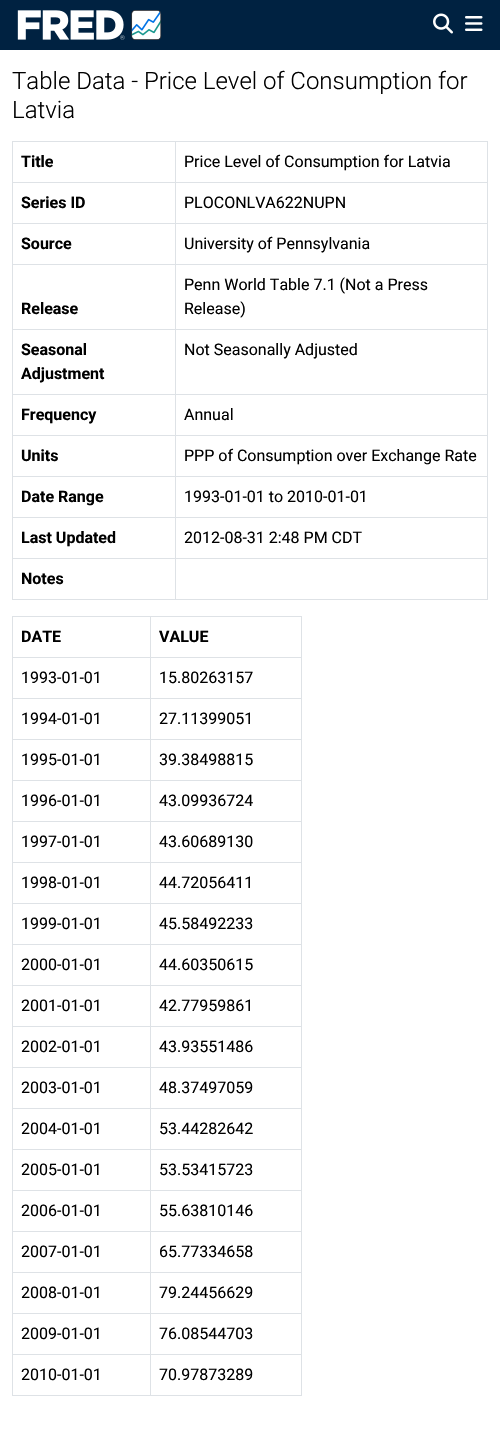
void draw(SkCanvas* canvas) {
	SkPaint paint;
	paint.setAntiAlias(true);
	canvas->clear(0xffffffff);
	paint.setColor(0xff002241);
	canvas->drawRect(SkRect::MakeXYWH(0, 0, 500, 50), paint);
	canvas->drawImageRect(SkImages::DeferredFromEncodedData(SkData::MakeFromFileName("img1.png")), SkRect::MakeXYWH(17, 10, 145, 30), SkSamplingOptions());
	canvas->drawImageRect(SkImages::DeferredFromEncodedData(SkData::MakeFromFileName("img2.png")), SkRect::MakeXYWH(433, 13, 20, 21), SkSamplingOptions());
	canvas->drawImageRect(SkImages::DeferredFromEncodedData(SkData::MakeFromFileName("img3.png")), SkRect::MakeXYWH(465, 16, 18, 15), SkSamplingOptions());
	SkFont f1(fontMgr->matchFamilyStyle("Roboto", SkFontStyle(300, SkFontStyle::kNormal_Width, SkFontStyle::kUpright_Slant)), 24);
	f1.setSubpixel(true);
	paint.setColor(0xff000000);
	canvas->drawString("Table Data - Price Level of Consumption for", 12, 89, f1, paint);
	canvas->drawString("Latvia", 12, 118, f1, paint);
	paint.setColor(0xffdee2e6);
	canvas->drawRect(SkRect::MakeXYWH(12, 141, 476, 1), paint);
	SkFont f2(fontMgr->matchFamilyStyle("Roboto", SkFontStyle::Bold()), 16);
	f2.setSubpixel(true);
	paint.setColor(0xff000000);
	canvas->drawString("Title", 21, 167, f2, paint);
	SkFont f3(fontMgr->matchFamilyStyle("Roboto", SkFontStyle::Normal()), 16);
	f3.setSubpixel(true);
	canvas->drawString("Price Level of Consumption for Latvia", 184, 167, f3, paint);
	paint.setColor(0xffdee2e6);
	canvas->drawRect(SkRect::MakeXYWH(12, 182, 476, 1), paint);
	paint.setColor(0xff000000);
	canvas->drawString("Series ID", 21, 208, f2, paint);
	canvas->drawString("PLOCONLVA622NUPN", 184, 208, f3, paint);
	paint.setColor(0xffdee2e6);
	canvas->drawRect(SkRect::MakeXYWH(12, 223, 476, 1), paint);
	paint.setColor(0xff000000);
	canvas->drawString("Source", 21, 249, f2, paint);
	canvas->drawString("University of Pennsylvania", 184, 249, f3, paint);
	paint.setColor(0xffdee2e6);
	canvas->drawRect(SkRect::MakeXYWH(12, 264, 476, 1), paint);
	paint.setColor(0xff000000);
	canvas->drawString("Release", 21, 314, f2, paint);
	canvas->drawString("Penn World Table 7.1 (Not a Press", 184, 290, f3, paint);
	canvas->drawString("Release)", 184, 314, f3, paint);
	paint.setColor(0xffdee2e6);
	canvas->drawRect(SkRect::MakeXYWH(12, 329, 476, 1), paint);
	paint.setColor(0xff000000);
	canvas->drawString("Seasonal", 21, 355, f2, paint);
	canvas->drawString("Adjustment", 21, 379, f2, paint);
	canvas->drawString("Not Seasonally Adjusted", 184, 355, f3, paint);
	paint.setColor(0xffdee2e6);
	canvas->drawRect(SkRect::MakeXYWH(12, 394, 476, 1), paint);
	paint.setColor(0xff000000);
	canvas->drawString("Frequency", 21, 420, f2, paint);
	canvas->drawString("Annual", 184, 420, f3, paint);
	paint.setColor(0xffdee2e6);
	canvas->drawRect(SkRect::MakeXYWH(12, 435, 476, 1), paint);
	paint.setColor(0xff000000);
	canvas->drawString("Units", 21, 461, f2, paint);
	canvas->drawString("PPP of Consumption over Exchange Rate", 184, 461, f3, paint);
	paint.setColor(0xffdee2e6);
	canvas->drawRect(SkRect::MakeXYWH(12, 476, 476, 1), paint);
	paint.setColor(0xff000000);
	canvas->drawString("Date Range", 21, 502, f2, paint);
	canvas->drawString("1993-01-01 to 2010-01-01", 184, 502, f3, paint);
	paint.setColor(0xffdee2e6);
	canvas->drawRect(SkRect::MakeXYWH(12, 517, 476, 1), paint);
	paint.setColor(0xff000000);
	canvas->drawString("Last Updated", 21, 543, f2, paint);
	canvas->drawString("2012-08-31 2:48 PM CDT", 184, 543, f3, paint);
	paint.setColor(0xffdee2e6);
	canvas->drawRect(SkRect::MakeXYWH(12, 558, 476, 1), paint);
	canvas->drawRect(SkRect::MakeXYWH(12, 599, 476, 1), paint);
	canvas->drawRect(SkRect::MakeXYWH(12, 141, 1, 459), paint);
	paint.setColor(0xff000000);
	canvas->drawString("Notes", 21, 584, f2, paint);
	paint.setColor(0xffdee2e6);
	canvas->drawRect(SkRect::MakeXYWH(487, 141, 1, 459), paint);
	canvas->drawRect(SkRect::MakeXYWH(175, 141, 1, 459), paint);
	canvas->drawRect(SkRect::MakeXYWH(12, 616, 290, 1), paint);
	paint.setColor(0xff000000);
	canvas->drawString("DATE", 21, 642, f2, paint);
	canvas->drawString("VALUE", 159, 642, f2, paint);
	paint.setColor(0xffdee2e6);
	canvas->drawRect(SkRect::MakeXYWH(12, 657, 290, 1), paint);
	paint.setColor(0xff000000);
	canvas->drawString("1993-01-01", 21, 683, f3, paint);
	canvas->drawString("15.80263157", 159, 683, f3, paint);
	paint.setColor(0xffdee2e6);
	canvas->drawRect(SkRect::MakeXYWH(12, 698, 290, 1), paint);
	paint.setColor(0xff000000);
	canvas->drawString("1994-01-01", 21, 724, f3, paint);
	canvas->drawString("27.11399051", 159, 724, f3, paint);
	paint.setColor(0xffdee2e6);
	canvas->drawRect(SkRect::MakeXYWH(12, 739, 290, 1), paint);
	paint.setColor(0xff000000);
	canvas->drawString("1995-01-01", 21, 765, f3, paint);
	canvas->drawString("39.38498815", 159, 765, f3, paint);
	paint.setColor(0xffdee2e6);
	canvas->drawRect(SkRect::MakeXYWH(12, 780, 290, 1), paint);
	paint.setColor(0xff000000);
	canvas->drawString("1996-01-01", 21, 806, f3, paint);
	canvas->drawString("43.09936724", 159, 806, f3, paint);
	paint.setColor(0xffdee2e6);
	canvas->drawRect(SkRect::MakeXYWH(12, 821, 290, 1), paint);
	paint.setColor(0xff000000);
	canvas->drawString("1997-01-01", 21, 847, f3, paint);
	canvas->drawString("43.60689130", 159, 847, f3, paint);
	paint.setColor(0xffdee2e6);
	canvas->drawRect(SkRect::MakeXYWH(12, 862, 290, 1), paint);
	paint.setColor(0xff000000);
	canvas->drawString("1998-01-01", 21, 888, f3, paint);
	canvas->drawString("44.72056411", 159, 888, f3, paint);
	paint.setColor(0xffdee2e6);
	canvas->drawRect(SkRect::MakeXYWH(12, 903, 290, 1), paint);
	paint.setColor(0xff000000);
	canvas->drawString("1999-01-01", 21, 929, f3, paint);
	canvas->drawString("45.58492233", 159, 929, f3, paint);
	paint.setColor(0xffdee2e6);
	canvas->drawRect(SkRect::MakeXYWH(12, 944, 290, 1), paint);
	paint.setColor(0xff000000);
	canvas->drawString("2000-01-01", 21, 970, f3, paint);
	canvas->drawString("44.60350615", 159, 970, f3, paint);
	paint.setColor(0xffdee2e6);
	canvas->drawRect(SkRect::MakeXYWH(12, 985, 290, 1), paint);
	paint.setColor(0xff000000);
	canvas->drawString("2001-01-01", 21, 1011, f3, paint);
	canvas->drawString("42.77959861", 159, 1011, f3, paint);
	paint.setColor(0xffdee2e6);
	canvas->drawRect(SkRect::MakeXYWH(12, 1026, 290, 1), paint);
	paint.setColor(0xff000000);
	canvas->drawString("2002-01-01", 21, 1052, f3, paint);
	canvas->drawString("43.93551486", 159, 1052, f3, paint);
	paint.setColor(0xffdee2e6);
	canvas->drawRect(SkRect::MakeXYWH(12, 1067, 290, 1), paint);
	paint.setColor(0xff000000);
	canvas->drawString("2003-01-01", 21, 1093, f3, paint);
	canvas->drawString("48.37497059", 159, 1093, f3, paint);
	paint.setColor(0xffdee2e6);
	canvas->drawRect(SkRect::MakeXYWH(12, 1108, 290, 1), paint);
	paint.setColor(0xff000000);
	canvas->drawString("2004-01-01", 21, 1134, f3, paint);
	canvas->drawString("53.44282642", 159, 1134, f3, paint);
	paint.setColor(0xffdee2e6);
	canvas->drawRect(SkRect::MakeXYWH(12, 1149, 290, 1), paint);
	paint.setColor(0xff000000);
	canvas->drawString("2005-01-01", 21, 1175, f3, paint);
	canvas->drawString("53.53415723", 159, 1175, f3, paint);
	paint.setColor(0xffdee2e6);
	canvas->drawRect(SkRect::MakeXYWH(12, 1190, 290, 1), paint);
	paint.setColor(0xff000000);
	canvas->drawString("2006-01-01", 21, 1216, f3, paint);
	canvas->drawString("55.63810146", 159, 1216, f3, paint);
	paint.setColor(0xffdee2e6);
	canvas->drawRect(SkRect::MakeXYWH(12, 1231, 290, 1), paint);
	paint.setColor(0xff000000);
	canvas->drawString("2007-01-01", 21, 1257, f3, paint);
	canvas->drawString("65.77334658", 159, 1257, f3, paint);
	paint.setColor(0xffdee2e6);
	canvas->drawRect(SkRect::MakeXYWH(12, 1272, 290, 1), paint);
	paint.setColor(0xff000000);
	canvas->drawString("2008-01-01", 21, 1298, f3, paint);
	canvas->drawString("79.24456629", 159, 1298, f3, paint);
	paint.setColor(0xffdee2e6);
	canvas->drawRect(SkRect::MakeXYWH(12, 1313, 290, 1), paint);
	paint.setColor(0xff000000);
	canvas->drawString("2009-01-01", 21, 1339, f3, paint);
	canvas->drawString("76.08544703", 159, 1339, f3, paint);
	paint.setColor(0xffdee2e6);
	canvas->drawRect(SkRect::MakeXYWH(12, 1354, 290, 1), paint);
	canvas->drawRect(SkRect::MakeXYWH(12, 1395, 290, 1), paint);
	canvas->drawRect(SkRect::MakeXYWH(12, 616, 1, 780), paint);
	paint.setColor(0xff000000);
	canvas->drawString("2010-01-01", 21, 1380, f3, paint);
	paint.setColor(0xffdee2e6);
	canvas->drawRect(SkRect::MakeXYWH(301, 616, 1, 780), paint);
	canvas->drawRect(SkRect::MakeXYWH(150, 616, 1, 780), paint);
	paint.setColor(0xff000000);
	canvas->drawString("70.97873289", 159, 1380, f3, paint);
}
